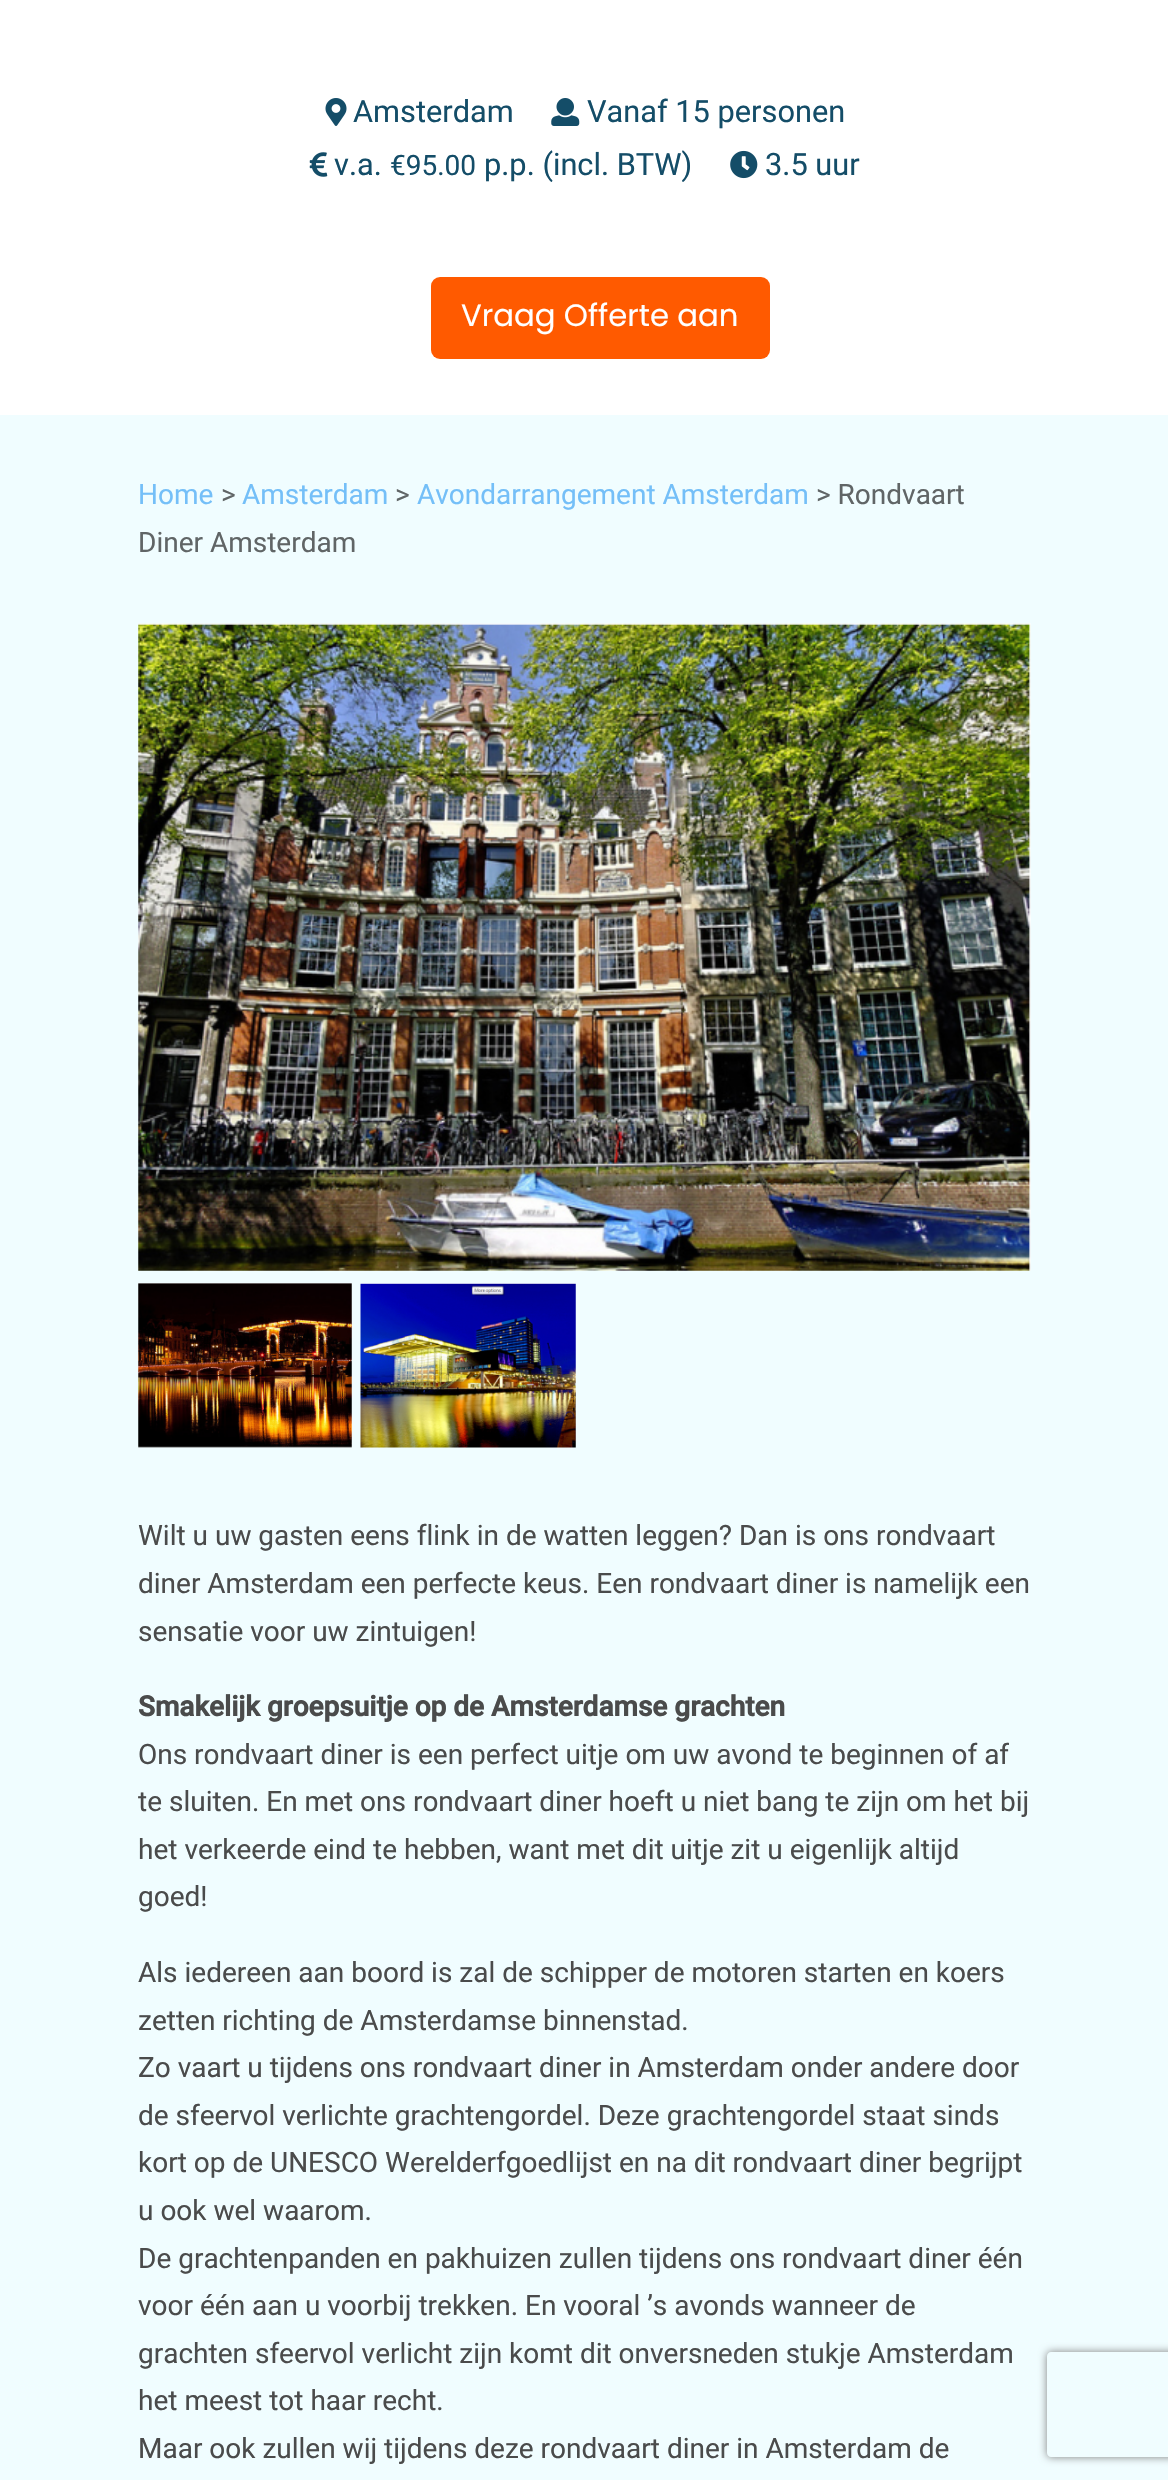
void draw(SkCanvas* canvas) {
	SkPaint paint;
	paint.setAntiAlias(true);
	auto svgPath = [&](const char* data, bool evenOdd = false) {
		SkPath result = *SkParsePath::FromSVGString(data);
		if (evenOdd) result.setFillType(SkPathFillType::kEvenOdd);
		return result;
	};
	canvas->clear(0xffffffff);
	canvas->drawImageRect(SkImages::DeferredFromEncodedData(SkData::MakeFromFileName("img1.png")), SkRect::MakeXYWH(325, 98, 22, 28), SkSamplingOptions());
	SkFont f1(fontMgr->matchFamilyStyle("Roboto", SkFontStyle::Normal()), 30.75);
	f1.setSubpixel(true);
	paint.setColor(0xff144d68);
	canvas->drawString("Amsterdam", 353, 122, f1, paint);
	canvas->drawImageRect(SkImages::DeferredFromEncodedData(SkData::MakeFromFileName("img2.png")), SkRect::MakeXYWH(551, 98, 29, 28), SkSamplingOptions());
	canvas->drawString("Vanaf 15 personen", 587, 122, f1, paint);
	canvas->drawImageRect(SkImages::DeferredFromEncodedData(SkData::MakeFromFileName("img3.png")), SkRect::MakeXYWH(309, 152, 19, 25), SkSamplingOptions());
	canvas->drawString("v.a.", 334, 175, f1, paint);
	SkFont f2(fontMgr->matchFamilyStyle("Roboto", SkFontStyle::Normal()), 28);
	f2.setSubpixel(true);
	canvas->drawString("€95.00", 390, 175, f2, paint);
	canvas->drawString("p.p. (incl. BTW)", 484, 175, f1, paint);
	canvas->drawImageRect(SkImages::DeferredFromEncodedData(SkData::MakeFromFileName("img4.png")), SkRect::MakeXYWH(730, 150, 28, 29), SkSamplingOptions());
	canvas->drawString("3.5 uur", 765, 175, f1, paint);
	paint.setColor(0xffff5a00);
	canvas->drawRoundRect(SkRect::MakeXYWH(431, 277, 339, 82), 9, 9, paint);
	SkFont f3(fontMgr->matchFamilyStyle("Poppins", SkFontStyle::Normal()), 30.75);
	f3.setSubpixel(true);
	paint.setColor(0xffffffff);
	canvas->drawString("Vraag Offerte aan", 461, 326, f3, paint);
	paint.setColor(0xfff0fdff);
	canvas->drawRect(SkRect::MakeXYWH(0, 415, 1168, 2065), paint);
	paint.setColor(0xff74bff8);
	canvas->drawString("Home", 138, 504, f2, paint);
	paint.setColor(0xff606566);
	canvas->drawString(">", 221, 504, f2, paint);
	paint.setColor(0xff74bff8);
	canvas->drawString("Amsterdam", 242, 504, f2, paint);
	paint.setColor(0xff606566);
	canvas->drawString(">", 395, 504, f2, paint);
	paint.setColor(0xff74bff8);
	canvas->drawString("Avondarrangement Amsterdam", 417, 504, f2, paint);
	paint.setColor(0xff606566);
	canvas->drawString("> Rondvaart", 816, 504, f2, paint);
	canvas->drawString("Diner Amsterdam", 138, 552, f2, paint);
	canvas->drawImageRect(SkImages::DeferredFromEncodedData(SkData::MakeFromFileName("img5.png")), SkRect::MakeXYWH(138, 623, 893, 648), SkSamplingOptions());
	canvas->drawImageRect(SkImages::DeferredFromEncodedData(SkData::MakeFromFileName("img6.png")), SkRect::MakeXYWH(138, 1283, 214, 165), SkSamplingOptions());
	canvas->drawImageRect(SkImages::DeferredFromEncodedData(SkData::MakeFromFileName("img7.png")), SkRect::MakeXYWH(360, 1283, 216, 165), SkSamplingOptions());
	paint.setColor(0xff4a4b4b);
	canvas->drawString("Wilt u uw gasten eens flink in de watten leggen? Dan is ons rondvaart", 138, 1545, f2, paint);
	canvas->drawString("diner Amsterdam een perfecte keus. Een rondvaart diner is namelijk een", 138, 1593, f2, paint);
	canvas->drawString("sensatie voor uw zintuigen!", 138, 1641, f2, paint);
	SkFont f4(fontMgr->matchFamilyStyle("Roboto", SkFontStyle::Bold()), 28);
	f4.setSubpixel(true);
	canvas->drawString("Smakelijk groepsuitje op de Amsterdamse grachten", 138, 1716, f4, paint);
	canvas->drawString("Ons rondvaart diner is een perfect uitje om uw avond te beginnen of af", 138, 1764, f2, paint);
	canvas->drawString("te sluiten. En met ons rondvaart diner hoeft u niet bang te zijn om het bij", 138, 1811, f2, paint);
	canvas->drawString("het verkeerde eind te hebben, want met dit uitje zit u eigenlijk altijd", 138, 1859, f2, paint);
	canvas->drawString("goed!", 138, 1906, f2, paint);
	canvas->drawString("Als iedereen aan boord is zal de schipper de motoren starten en koers", 138, 1982, f2, paint);
	canvas->drawString("zetten richting de Amsterdamse binnenstad.", 138, 2030, f2, paint);
	canvas->drawString("Zo vaart u tijdens ons rondvaart diner in Amsterdam onder andere door", 138, 2077, f2, paint);
	canvas->drawString("de sfeervol verlichte grachtengordel. Deze grachtengordel staat sinds", 138, 2125, f2, paint);
	canvas->drawString("kort op de UNESCO Werelderfgoedlijst en na dit rondvaart diner begrijpt", 138, 2172, f2, paint);
	canvas->drawString("u ook wel waarom.", 138, 2220, f2, paint);
	canvas->drawString("De grachtenpanden en pakhuizen zullen tijdens ons rondvaart diner één", 138, 2268, f2, paint);
	canvas->drawString("voor één aan u voorbij trekken. En vooral ’s avonds wanneer de", 138, 2315, f2, paint);
	canvas->drawString("grachten sfeervol verlicht zijn komt dit onversneden stukje Amsterdam", 138, 2363, f2, paint);
	canvas->drawString("het meest tot haar recht.", 138, 2410, f2, paint);
	canvas->drawString("Maar ook zullen wij tijdens deze rondvaart diner in Amsterdam de", 138, 2458, f2, paint);
	canvas->save();
	canvas->clipPath(svgPath("M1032 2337H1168V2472H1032ZM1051 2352H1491C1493 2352 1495 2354 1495 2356V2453C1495 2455 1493 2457 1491 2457H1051C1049 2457 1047 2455 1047 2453V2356C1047 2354 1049 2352 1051 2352Z", true), true);
	paint.setColor(0xff808080);
	paint.setMaskFilter(SkMaskFilter::MakeBlur(kNormal_SkBlurStyle, 4.5));
	canvas->drawRoundRect(SkRect::MakeXYWH(1047, 2352, 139, 105), 4, 4, paint);
	paint.setMaskFilter(nullptr);
	canvas->restore();
}
